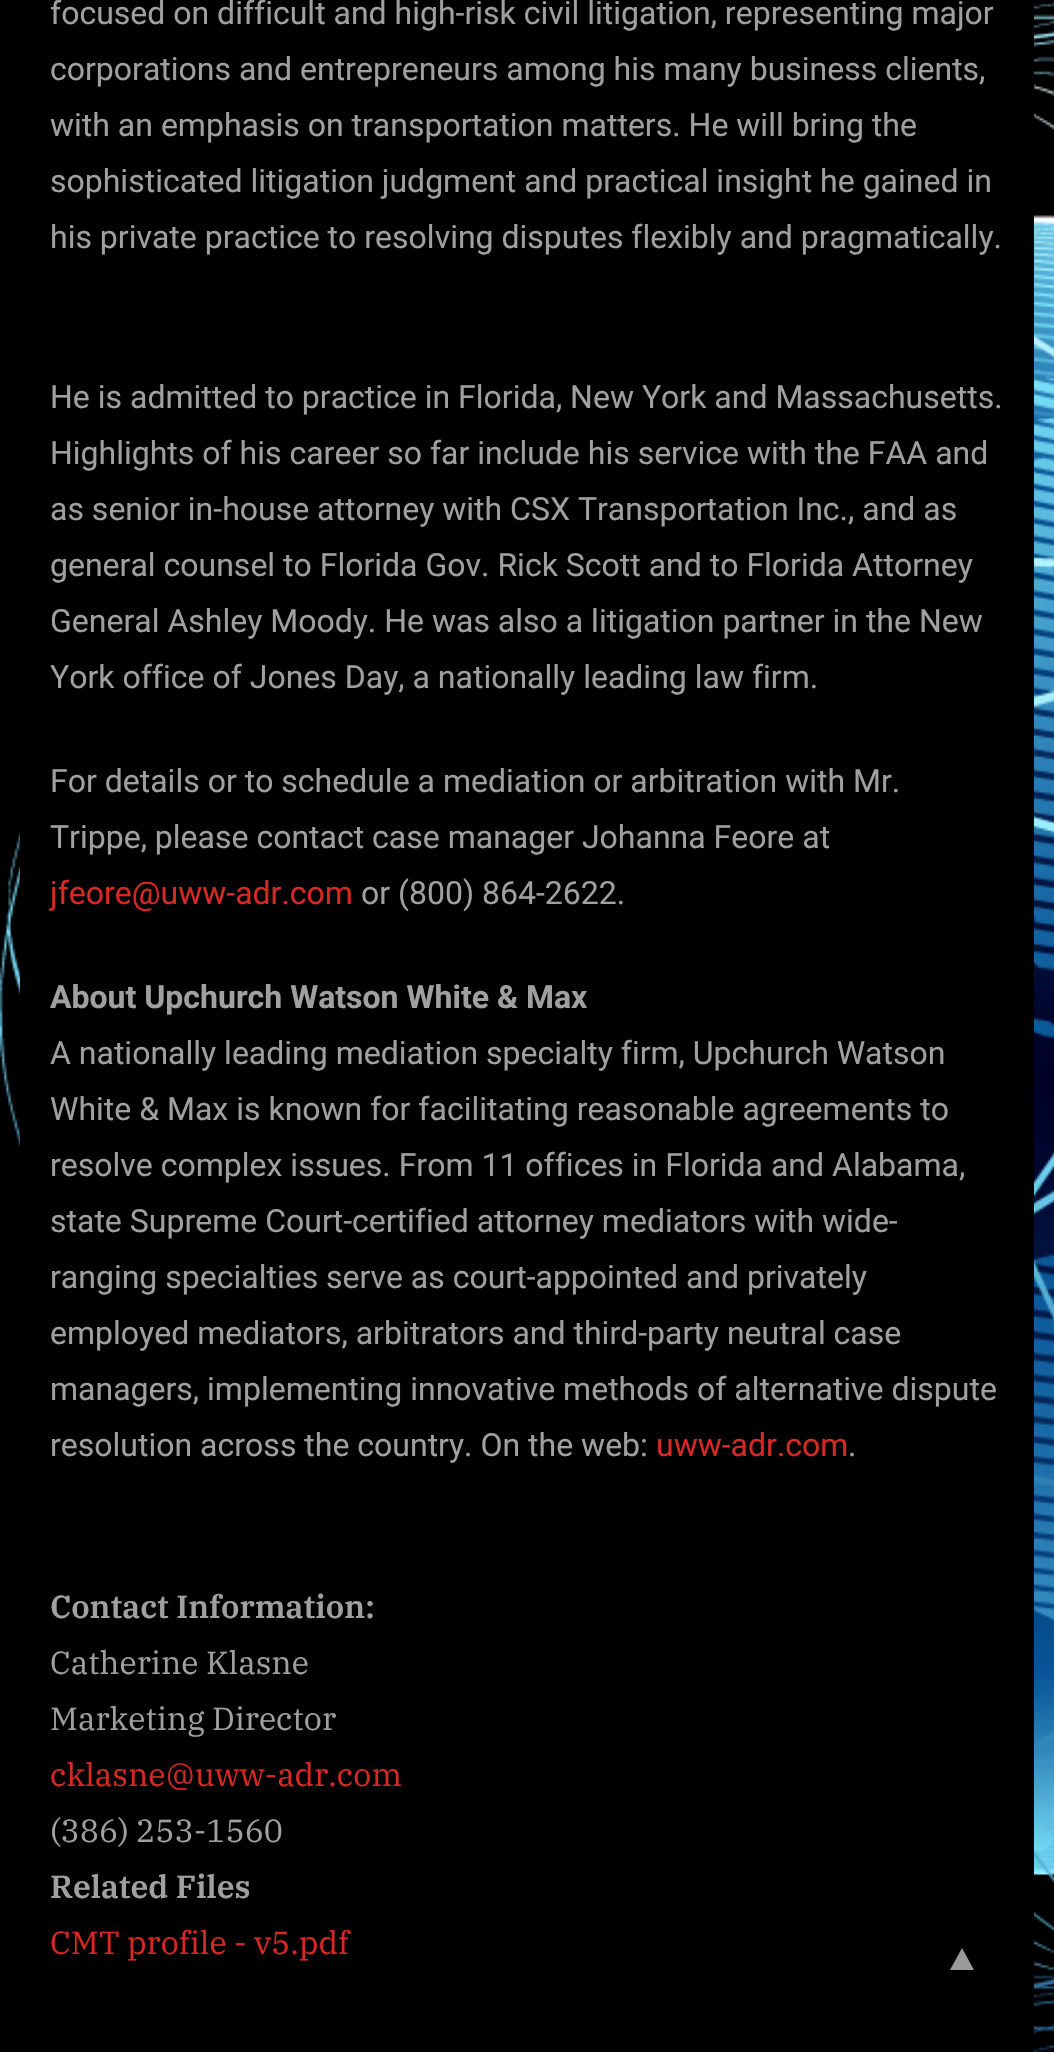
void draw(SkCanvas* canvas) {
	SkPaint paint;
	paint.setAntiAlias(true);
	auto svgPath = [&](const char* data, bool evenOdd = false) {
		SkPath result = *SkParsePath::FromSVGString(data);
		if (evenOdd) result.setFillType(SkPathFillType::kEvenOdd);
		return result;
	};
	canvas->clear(0xff000000);
	canvas->drawImageRect(SkImages::DeferredFromEncodedData(SkData::MakeFromFileName("img1.png")), SkRect::MakeXYWH(0, 1, 1054, 2051), SkSamplingOptions());
	paint.setColor(0xff000000);
	canvas->drawRect(SkRect::MakeXYWH(20, 1, 1014, 2051), paint);
	SkFont f1(fontMgr->matchFamilyStyle("Roboto", SkFontStyle::Normal()), 32);
	f1.setSubpixel(true);
	paint.setColor(0xffa0a0a0);
	canvas->drawString("focused on difficult and high-risk civil litigation, representing major", 50, 24, f1, paint);
	canvas->drawString("corporations and entrepreneurs among his many business clients,", 50, 80, f1, paint);
	canvas->drawString("with an emphasis on transportation matters. He will bring the", 50, 136, f1, paint);
	canvas->drawString("sophisticated litigation judgment and practical insight he gained in", 50, 192, f1, paint);
	canvas->drawString("his private practice to resolving disputes flexibly and pragmatically.", 50, 248, f1, paint);
	canvas->drawString("He is admitted to practice in Florida, New York and Massachusetts.", 50, 408, f1, paint);
	canvas->drawString("Highlights of his career so far include his service with the FAA and", 50, 464, f1, paint);
	canvas->drawString("as senior in-house attorney with CSX Transportation Inc., and as", 50, 520, f1, paint);
	canvas->drawString("general counsel to Florida Gov. Rick Scott and to Florida Attorney", 50, 576, f1, paint);
	canvas->drawString("General Ashley Moody. He was also a litigation partner in the New", 50, 632, f1, paint);
	canvas->drawString("York office of Jones Day, a nationally leading law firm.", 50, 688, f1, paint);
	canvas->drawString("For details or to schedule a mediation or arbitration with Mr.", 50, 792, f1, paint);
	canvas->drawString("Trippe, please contact case manager Johanna Feore at", 50, 848, f1, paint);
	paint.setColor(0xffd72924);
	canvas->drawString("jfeore@uww-adr.com", 50, 904, f1, paint);
	paint.setColor(0xffa0a0a0);
	canvas->drawString("or (800) 864-2622.", 361, 904, f1, paint);
	SkFont f2(fontMgr->matchFamilyStyle("Roboto", SkFontStyle::Bold()), 32);
	f2.setSubpixel(true);
	canvas->drawString("About Upchurch Watson White & Max", 50, 1008, f2, paint);
	canvas->drawString("A nationally leading mediation specialty firm, Upchurch Watson", 50, 1064, f1, paint);
	canvas->drawString("White & Max is known for facilitating reasonable agreements to", 50, 1120, f1, paint);
	canvas->drawString("resolve complex issues. From 11 offices in Florida and Alabama,", 50, 1176, f1, paint);
	canvas->drawString("state Supreme Court-certified attorney mediators with wide-", 50, 1232, f1, paint);
	canvas->drawString("ranging specialties serve as court-appointed and privately", 50, 1288, f1, paint);
	canvas->drawString("employed mediators, arbitrators and third-party neutral case", 50, 1344, f1, paint);
	canvas->drawString("managers, implementing innovative methods of alternative dispute", 50, 1400, f1, paint);
	canvas->drawString("resolution across the country. On the web:", 50, 1456, f1, paint);
	paint.setColor(0xffd72924);
	canvas->drawString("uww-adr.com", 656, 1456, f1, paint);
	paint.setColor(0xffa0a0a0);
	canvas->drawString(".", 848, 1456, f1, paint);
	SkFont f3(fontMgr->matchFamilyStyle("IBM Plex Serif", SkFontStyle(600, SkFontStyle::kNormal_Width, SkFontStyle::kUpright_Slant)), 32);
	f3.setSubpixel(true);
	canvas->drawString("Contact Information:", 50, 1618, f3, paint);
	SkFont f4(fontMgr->matchFamilyStyle("IBM Plex Serif", SkFontStyle::Normal()), 32);
	f4.setSubpixel(true);
	canvas->drawString("Catherine Klasne", 50, 1674, f4, paint);
	canvas->drawString("Marketing Director", 50, 1730, f4, paint);
	paint.setColor(0xffd72924);
	canvas->drawString("cklasne@uww-adr.com", 50, 1786, f4, paint);
	paint.setColor(0xffa0a0a0);
	canvas->drawString("(386) 253-1560", 50, 1842, f4, paint);
	canvas->drawString("Related Files", 50, 1898, f3, paint);
	paint.setColor(0xffd72924);
	canvas->drawString("CMT profile - v5.pdf", 50, 1954, f4, paint);
	paint.setColor(0xff999999);
	canvas->drawPath(svgPath("M974 1970H950L962 1948Z"), paint);
}
